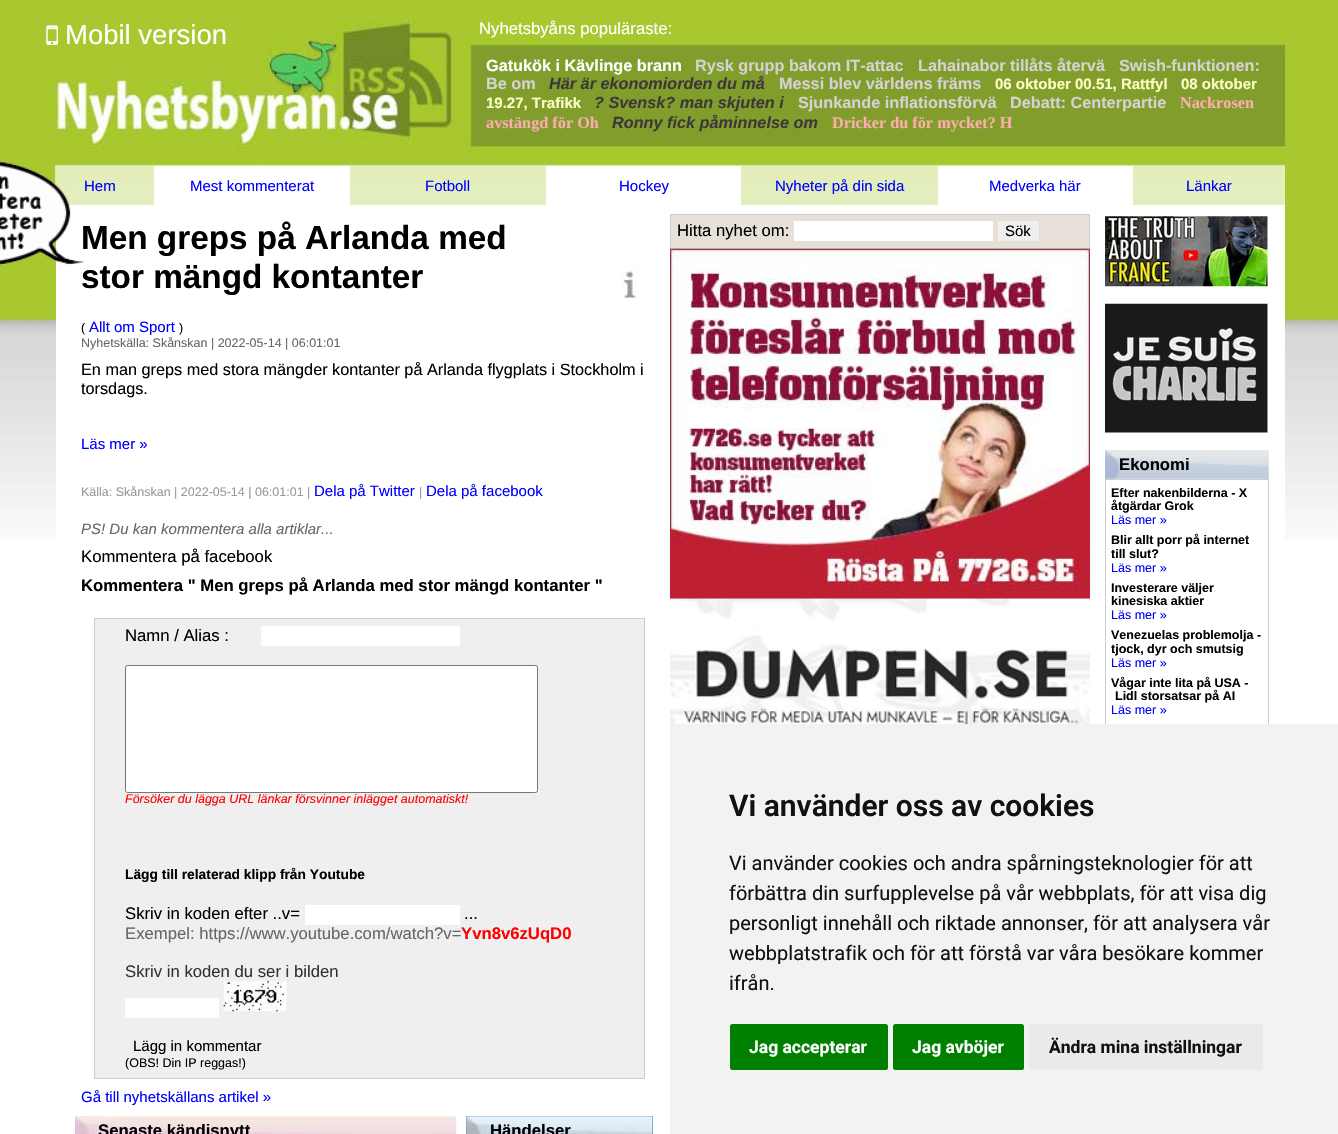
void draw(SkCanvas* canvas) {
	SkPaint paint;
	paint.setAntiAlias(true);
	canvas->clear(0xffffffff);
	canvas->drawImageRect(SkImages::DeferredFromEncodedData(SkData::MakeFromFileName("img1.png")), SkRect::MakeXYWH(0, 0, 1338, 540), SkSamplingOptions());
	canvas->drawImageRect(SkImages::DeferredFromEncodedData(SkData::MakeFromFileName("img3.png")), SkRect::MakeXYWH(46, 20, 1239, 185), SkSamplingOptions());
	paint.setColor(0xffffffff);
	canvas->drawRect(SkRect::MakeXYWH(56, 205, 1229, 335), paint);
	SkFont f1(fontMgr->matchFamilyStyle("Liberation Sans", SkFontStyle::Bold()), 33.3);
	f1.setSubpixel(true);
	paint.setColor(0xff000000);
	canvas->drawString("Men greps på Arlanda med", 81, 249, f1, paint);
	canvas->drawString("stor mängd kontanter", 81, 288, f1, paint);
	canvas->drawImageRect(SkImages::DeferredFromEncodedData(SkData::MakeFromFileName("img2.png")), SkRect::MakeXYWH(0, 161, 85, 105), SkSamplingOptions());
	canvas->drawImageRect(SkImages::DeferredFromEncodedData(SkData::MakeFromFileName("img4.png")), SkRect::MakeXYWH(46, 25, 13, 20), SkSamplingOptions());
	SkFont f2(fontMgr->matchFamilyStyle("Liberation Sans", SkFontStyle::Normal()), 27.5);
	f2.setSubpixel(true);
	paint.setColor(0xffffffff);
	canvas->drawString("Mobil version", 65, 44, f2, paint);
	SkFont f3(fontMgr->matchFamilyStyle("Liberation Sans", SkFontStyle::Normal()), 16.7);
	f3.setSubpixel(true);
	canvas->drawString("Nyhetsbyåns populäraste:", 479, 34, f3, paint);
	SkFont f4(fontMgr->matchFamilyStyle("Liberation Sans", SkFontStyle::Bold()), 16.25);
	f4.setSubpixel(true);
	canvas->drawString("Gatukök i Kävlinge brann", 486, 71, f4, paint);
	paint.setColor(0xffd4d2d2);
	canvas->drawString("Rysk grupp bakom IT-attac", 695, 71, f4, paint);
	canvas->drawString("Lahainabor tillåts återvä", 918, 71, f4, paint);
	canvas->drawString("Swish-funktionen:", 1119, 71, f4, paint);
	canvas->drawString("Be om", 486, 89, f4, paint);
	SkFont f5(fontMgr->matchFamilyStyle("Liberation Sans", SkFontStyle::BoldItalic()), 16.25);
	f5.setSubpixel(true);
	paint.setColor(0xff3c3939);
	canvas->drawString("Här är ekonomiorden du må", 549, 89, f5, paint);
	paint.setColor(0xffd4d2d2);
	canvas->drawString("Messi blev världens främs", 779, 89, f4, paint);
	SkFont f6(fontMgr->matchFamilyStyle("Liberation Sans", SkFontStyle::Bold()), 15);
	f6.setSubpixel(true);
	paint.setColor(0xfffbfdc2);
	canvas->drawString("06 oktober 00.51, Rattfyl", 995, 89, f6, paint);
	canvas->drawString("08 oktober", 1181, 89, f6, paint);
	canvas->drawString("19.27, Trafikk", 486, 108, f6, paint);
	paint.setColor(0xff3c3939);
	canvas->drawString("? Svensk? man skjuten i", 594, 108, f5, paint);
	paint.setColor(0xffd4d2d2);
	canvas->drawString("Sjunkande inflationsförvä", 798, 108, f4, paint);
	canvas->drawString("Debatt: Centerpartie", 1010, 108, f4, paint);
	SkFont f7(fontMgr->matchFamilyStyle("Liberation Serif", SkFontStyle::Bold()), 16.25);
	f7.setSubpixel(true);
	paint.setColor(0xfffeadad);
	canvas->drawString("Nackrosen", 1180, 108, f7, paint);
	canvas->drawString("avstängd för Oh", 486, 128, f7, paint);
	paint.setColor(0xff3c3939);
	canvas->drawString("Ronny fick påminnelse om", 612, 128, f5, paint);
	paint.setColor(0xfffeadad);
	canvas->drawString("Dricker du för mycket? H", 832, 128, f7, paint);
	SkFont f8(fontMgr->matchFamilyStyle("Liberation Sans", SkFontStyle::Normal()), 15);
	f8.setSubpixel(true);
	paint.setColor(0xff0000ff);
	canvas->drawString("Hem", 84, 191, f8, paint);
	paint.setColor(0xffffffff);
	canvas->drawRect(SkRect::MakeXYWH(154, 166, 196, 39), paint);
	paint.setColor(0xff0000ff);
	canvas->drawString("Mest kommenterat", 190, 191, f8, paint);
	canvas->drawString("Fotboll", 425, 191, f8, paint);
	paint.setColor(0xffffffff);
	canvas->drawRect(SkRect::MakeXYWH(546, 166, 195, 39), paint);
	paint.setColor(0xff0000ff);
	canvas->drawString("Hockey", 619, 191, f8, paint);
	canvas->drawString("Nyheter på din sida", 775, 191, f8, paint);
	paint.setColor(0xffffffff);
	canvas->drawRect(SkRect::MakeXYWH(938, 166, 195, 39), paint);
	paint.setColor(0xff0000ff);
	canvas->drawString("Medverka här", 989, 191, f8, paint);
	canvas->drawString("Länkar", 1186, 191, f8, paint);
	SkFont f9(fontMgr->matchFamilyStyle("Liberation Sans", SkFontStyle::Normal()), 12.5);
	f9.setSubpixel(true);
	paint.setColor(0xff000000);
	canvas->drawString("(", 81, 332, f9, paint);
	paint.setColor(0xff0000ff);
	canvas->drawString("Allt om Sport", 89, 332, f8, paint);
	paint.setColor(0xff000000);
	canvas->drawString(")", 179, 332, f9, paint);
	paint.setColor(0xff666666);
	canvas->drawString("Nyhetskälla: Skånskan | 2022-05-14 | 06:01:01", 81, 347, f9, paint);
	canvas->drawImageRect(SkImages::DeferredFromEncodedData(SkData::MakeFromFileName("img5.png")), SkRect::MakeXYWH(621, 270, 20, 29), SkSamplingOptions());
	SkFont f10(fontMgr->matchFamilyStyle("Liberation Sans", SkFontStyle::Normal()), 16.25);
	f10.setSubpixel(true);
	paint.setColor(0xff000000);
	canvas->drawString("En man greps med stora mängder kontanter på Arlanda flygplats i Stockholm i", 81, 375, f10, paint);
	canvas->drawString("torsdags.", 81, 394, f10, paint);
	paint.setColor(0xff0000ff);
	canvas->drawString("Läs mer »", 81, 449, f8, paint);
	paint.setColor(0xff999999);
	canvas->drawString("Källa: Skånskan | 2022-05-14 | 06:01:01 |", 81, 496, f9, paint);
	paint.setColor(0xff0000ff);
	canvas->drawString("Dela på Twitter", 314, 496, f8, paint);
	paint.setColor(0xff999999);
	canvas->drawString("|", 419, 496, f9, paint);
	paint.setColor(0xff0000ff);
	canvas->drawString("Dela på facebook", 426, 496, f8, paint);
	SkFont f11(fontMgr->matchFamilyStyle("Liberation Sans", SkFontStyle::Italic()), 15);
	f11.setSubpixel(true);
	paint.setColor(0xff666666);
	canvas->drawString("PS! Du kan kommentera alla artiklar...", 81, 534, f11, paint);
	paint.setColor(0xff000000);
	canvas->drawString("Kommentera på facebook", 81, 562, f3, paint);
	SkFont f12(fontMgr->matchFamilyStyle("Liberation Sans", SkFontStyle::Bold()), 16.7);
	f12.setSubpixel(true);
	canvas->drawString("Kommentera \" Men greps på Arlanda med stor mängd kontanter \"", 81, 591, f12, paint);
	paint.setColor(0xffcccccc);
	canvas->drawRect(SkRect::MakeXYWH(94, 618, 551, 461), paint);
	paint.setColor(0xffefefef);
	canvas->drawRect(SkRect::MakeXYWH(95, 619, 549, 459), paint);
	paint.setColor(0xff000000);
	canvas->drawString("Namn / Alias :", 125, 641, f3, paint);
	paint.setColor(0xffffffff);
	canvas->drawRect(SkRect::MakeXYWH(261, 626, 199, 20), paint);
	canvas->drawRoundRect(SkRect::MakeXYWH(125.5, 665.5, 412, 127), 2, 2, paint);
	paint.setStroke(true);
	paint.setStrokeWidth(1);
	paint.setColor(0xff767676);
	canvas->drawRoundRect(SkRect::MakeXYWH(125.5, 665.5, 412, 127), 2, 2, paint);
	SkFont f13(fontMgr->matchFamilyStyle("Liberation Sans", SkFontStyle::Italic()), 12.5);
	f13.setSubpixel(true);
	paint.setStroke(false);
	paint.setColor(0xffff0000);
	canvas->drawString("Försöker du lägga URL länkar försvinner inlägget automatiskt!", 125, 803, f13, paint);
	SkFont f14(fontMgr->matchFamilyStyle("Liberation Sans", SkFontStyle::Bold()), 13.8);
	f14.setSubpixel(true);
	paint.setColor(0xff000000);
	canvas->drawString("Lägg till relaterad klipp från Youtube", 125, 879, f14, paint);
	canvas->drawString("Skriv in koden efter ..v=", 125, 919, f3, paint);
	paint.setColor(0xffffffff);
	canvas->drawRect(SkRect::MakeXYWH(305, 905, 155, 20), paint);
	paint.setColor(0xff000000);
	canvas->drawString("...", 464, 919, f3, paint);
	paint.setColor(0xff666666);
	canvas->drawString("Exempel: https://www.youtube.com/watch?v=", 125, 939, f3, paint);
	paint.setColor(0xffff0000);
	canvas->drawString("Yvn8v6zUqD0", 461, 939, f12, paint);
	paint.setColor(0xff333333);
	canvas->drawString("Skriv in koden du ser i bilden", 125, 977, f3, paint);
	paint.setColor(0xffffffff);
	canvas->drawRect(SkRect::MakeXYWH(125, 998, 94, 20), paint);
	canvas->drawImageRect(SkImages::DeferredFromEncodedData(SkData::MakeFromFileName("img6.png")), SkRect::MakeXYWH(223, 981, 64, 31), SkSamplingOptions());
	paint.setColor(0xff000000);
	canvas->drawString("Lägg in kommentar", 133, 1051, f8, paint);
	canvas->drawString("(OBS! Din IP reggas!)", 125, 1067, f9, paint);
	paint.setColor(0xff0000ff);
	canvas->drawString("Gå till nyhetskällans artikel »", 81, 1102, f8, paint);
	canvas->drawImageRect(SkImages::DeferredFromEncodedData(SkData::MakeFromFileName("img7.png")), SkRect::MakeXYWH(75, 1116, 382, 18), SkSamplingOptions());
	paint.setColor(0xff000000);
	canvas->drawString("Senaste kändisnytt", 98, 1136, f12, paint);
	paint.setColor(0xff3366cc);
	canvas->drawRect(SkRect::MakeXYWH(466, 1116, 187, 18), paint);
	canvas->drawImageRect(SkImages::DeferredFromEncodedData(SkData::MakeFromFileName("img8.png")), SkRect::MakeXYWH(466, 1116, 187, 18), SkSamplingOptions());
	paint.setColor(0xff000000);
	canvas->drawString("Händelser", 490, 1136, f12, paint);
	paint.setColor(0xffcccccc);
	canvas->drawRect(SkRect::MakeXYWH(670, 214, 420, 35), paint);
	paint.setColor(0xffe7e0d8);
	canvas->drawRect(SkRect::MakeXYWH(671, 215, 418, 33), paint);
	paint.setColor(0xff000000);
	canvas->drawString("Hitta nyhet om:", 677, 236, f3, paint);
	paint.setColor(0xffffffff);
	canvas->drawRect(SkRect::MakeXYWH(794, 221, 199, 20), paint);
	paint.setColor(0xffefefef);
	canvas->drawRect(SkRect::MakeXYWH(998, 221, 41, 20), paint);
	paint.setColor(0xff000000);
	canvas->drawString("Sök", 1005, 236, f8, paint);
	canvas->drawImageRect(SkImages::DeferredFromEncodedData(SkData::MakeFromFileName("img9.png")), SkRect::MakeXYWH(670, 248, 420, 351), SkSamplingOptions());
	canvas->drawImageRect(SkImages::DeferredFromEncodedData(SkData::MakeFromFileName("img10.png")), SkRect::MakeXYWH(670, 598, 420, 126), SkSamplingOptions());
	canvas->drawImageRect(SkImages::DeferredFromEncodedData(SkData::MakeFromFileName("img11.png")), SkRect::MakeXYWH(1105, 216, 163, 71), SkSamplingOptions());
	canvas->drawImageRect(SkImages::DeferredFromEncodedData(SkData::MakeFromFileName("img12.png")), SkRect::MakeXYWH(1105, 303, 163, 130), SkSamplingOptions());
	canvas->drawImageRect(SkImages::DeferredFromEncodedData(SkData::MakeFromFileName("img13.png")), SkRect::MakeXYWH(1105, 450, 164, 29), SkSamplingOptions());
	canvas->drawString("Ekonomi", 1119, 470, f12, paint);
	paint.setColor(0xffcccccc);
	canvas->drawRect(SkRect::MakeXYWH(1105, 479, 164, 245), paint);
	paint.setColor(0xffffffff);
	canvas->drawRect(SkRect::MakeXYWH(1106, 480, 162, 244), paint);
	SkFont f15(fontMgr->matchFamilyStyle("Liberation Sans", SkFontStyle::Bold()), 12.5);
	f15.setSubpixel(true);
	paint.setColor(0xff000000);
	canvas->drawString("Efter nakenbilderna - X", 1111, 497, f15, paint);
	canvas->drawString("åtgärdar Grok", 1111, 510, f15, paint);
	paint.setColor(0xff0000ff);
	canvas->drawString("Läs mer »", 1111, 524, f9, paint);
	paint.setColor(0xff000000);
	canvas->drawString("Blir allt porr på internet", 1111, 544, f15, paint);
	canvas->drawString("till slut?", 1111, 558, f15, paint);
	paint.setColor(0xff0000ff);
	canvas->drawString("Läs mer »", 1111, 572, f9, paint);
	paint.setColor(0xff000000);
	canvas->drawString("Investerare väljer", 1111, 592, f15, paint);
	canvas->drawString("kinesiska aktier", 1111, 605, f15, paint);
	paint.setColor(0xff0000ff);
	canvas->drawString("Läs mer »", 1111, 619, f9, paint);
	paint.setColor(0xff000000);
	canvas->drawString("Venezuelas problemolja -", 1111, 639, f15, paint);
	canvas->drawString("tjock, dyr och smutsig", 1111, 653, f15, paint);
	paint.setColor(0xff0000ff);
	canvas->drawString("Läs mer »", 1111, 667, f9, paint);
	paint.setColor(0xff000000);
	canvas->drawString("Vågar inte lita på USA -", 1111, 687, f15, paint);
	canvas->drawString("Lidl storsatsar på AI", 1115, 700, f15, paint);
	paint.setColor(0xff0000ff);
	canvas->drawString("Läs mer »", 1111, 714, f9, paint);
	paint.setColor(0xfff2f2f2);
	canvas->drawRect(SkRect::MakeXYWH(670, 724, 668, 410), paint);
	SkFont f16(fontMgr->matchFamilyStyle("Roboto", SkFontStyle(600, SkFontStyle::kNormal_Width, SkFontStyle::kUpright_Slant)), 30);
	f16.setSubpixel(true);
	paint.setColor(0xff111111);
	canvas->drawString("Vi använder oss av cookies", 729, 816, f16, paint);
	SkFont f17(fontMgr->matchFamilyStyle("Roboto", SkFontStyle::Normal()), 20);
	f17.setSubpixel(true);
	canvas->drawString("Vi använder cookies och andra spårningsteknologier för att", 729, 870, f17, paint);
	canvas->drawString("förbättra din surfupplevelse på vår webbplats, för att visa dig", 729, 900, f17, paint);
	canvas->drawString("personligt innehåll och riktade annonser, för att analysera vår", 729, 930, f17, paint);
	canvas->drawString("webbplatstrafik och för att förstå var våra besökare kommer", 729, 960, f17, paint);
	canvas->drawString("ifrån.", 729, 990, f17, paint);
	paint.setColor(0xff008000);
	canvas->drawRoundRect(SkRect::MakeXYWH(730, 1024, 158, 46), 2.5, 2.5, paint);
	SkFont f18(fontMgr->matchFamilyStyle("Roboto", SkFontStyle::Bold()), 17.5);
	f18.setSubpixel(true);
	paint.setColor(0xffffffff);
	canvas->drawString("Jag accepterar", 749, 1053, f18, paint);
	paint.setColor(0xff008000);
	canvas->drawRoundRect(SkRect::MakeXYWH(893, 1024, 131, 46), 2.5, 2.5, paint);
	paint.setColor(0xffffffff);
	canvas->drawString("Jag avböjer", 912, 1053, f18, paint);
	paint.setColor(0xffeaeaea);
	canvas->drawRoundRect(SkRect::MakeXYWH(1029, 1024, 234, 46), 2.5, 2.5, paint);
	paint.setColor(0xff111111);
	canvas->drawString("Ändra mina inställningar", 1049, 1053, f18, paint);
}
